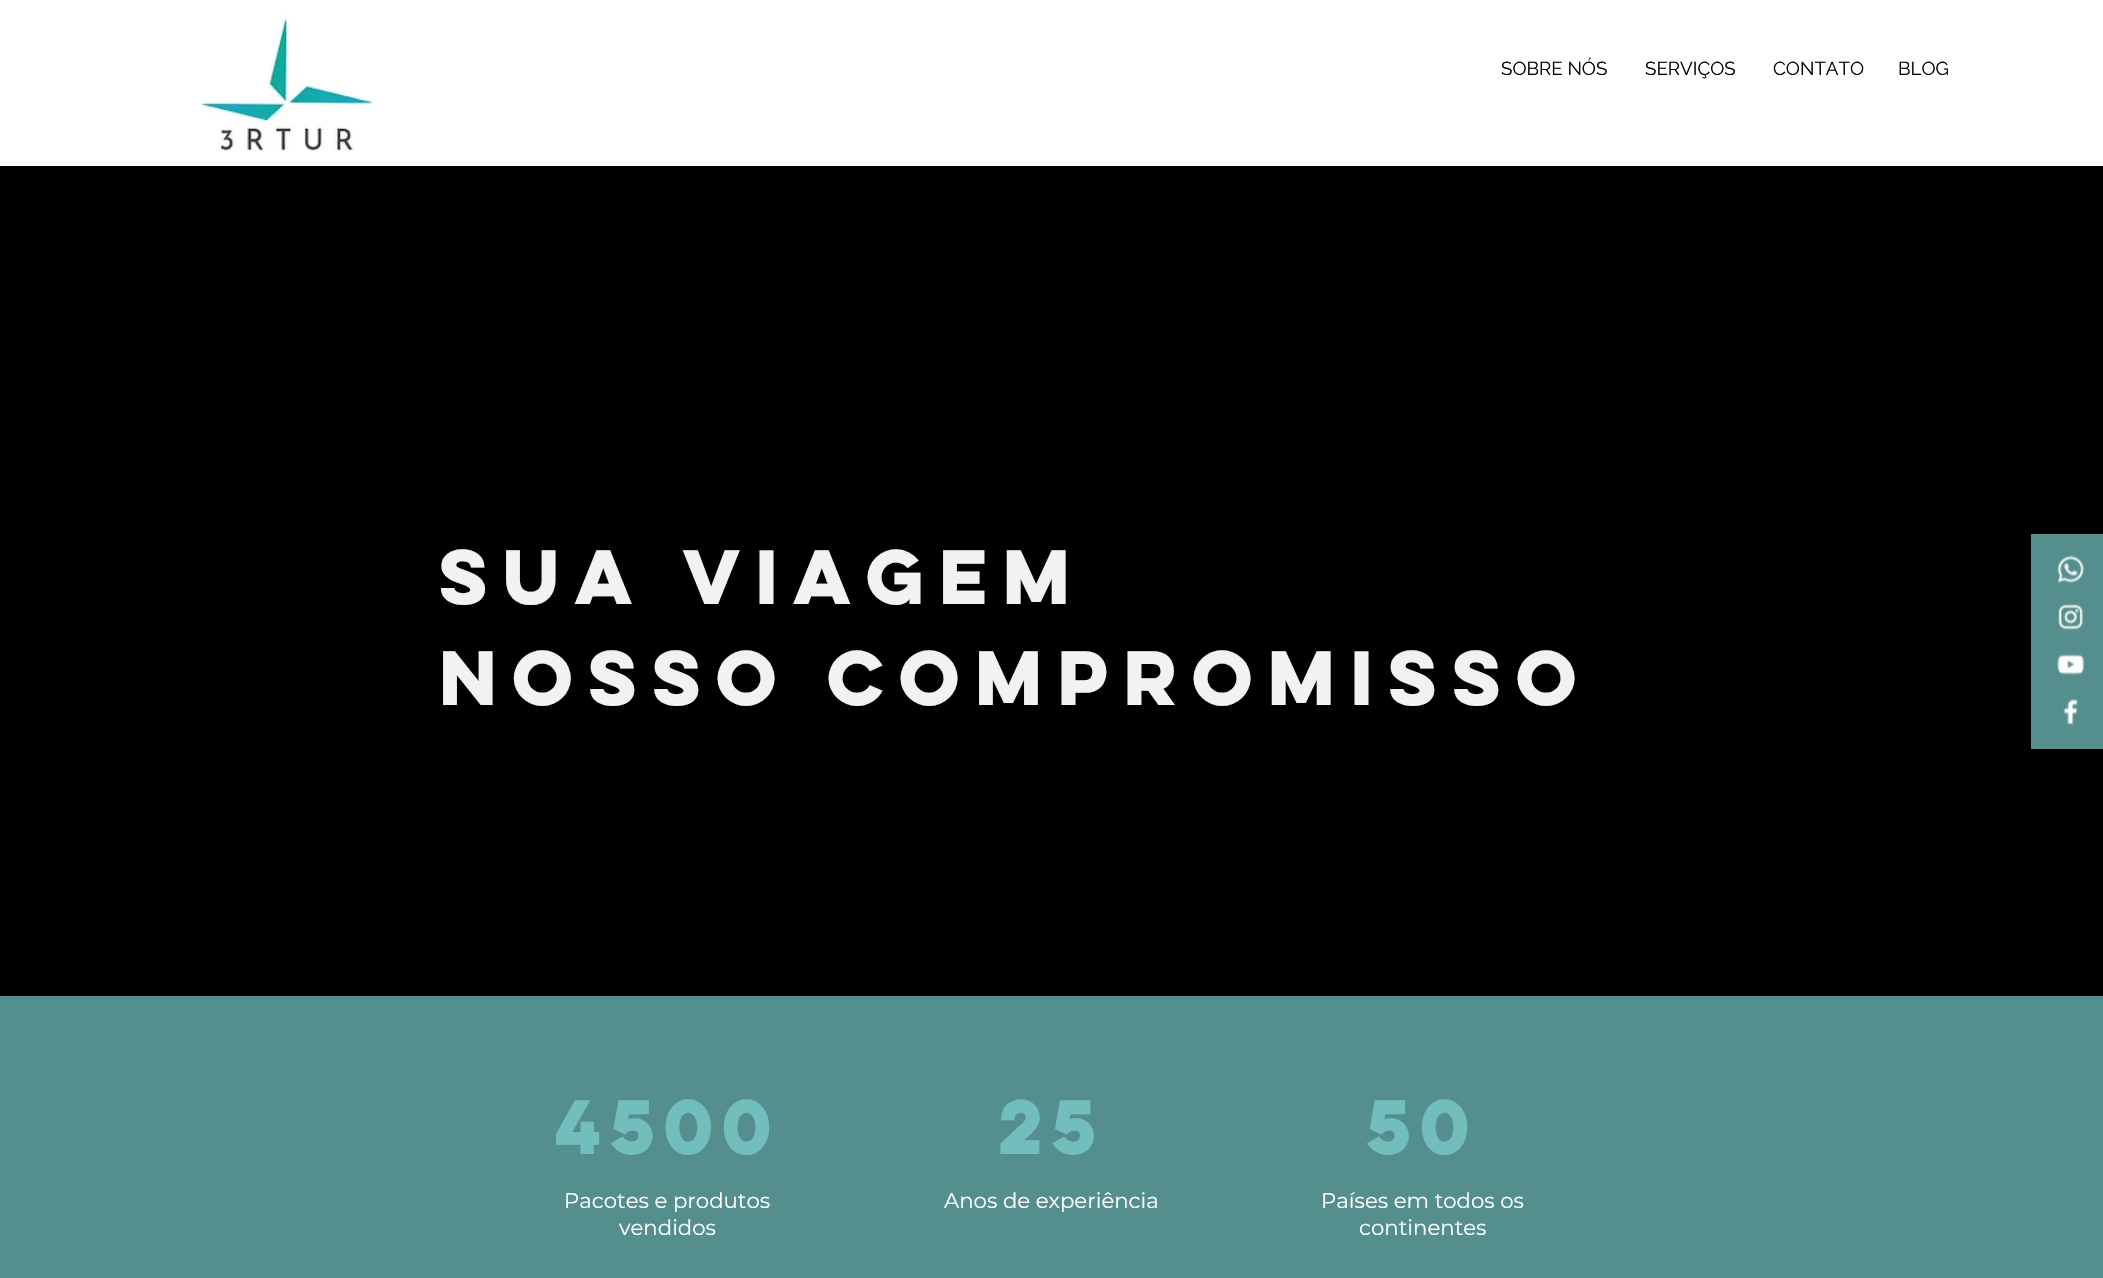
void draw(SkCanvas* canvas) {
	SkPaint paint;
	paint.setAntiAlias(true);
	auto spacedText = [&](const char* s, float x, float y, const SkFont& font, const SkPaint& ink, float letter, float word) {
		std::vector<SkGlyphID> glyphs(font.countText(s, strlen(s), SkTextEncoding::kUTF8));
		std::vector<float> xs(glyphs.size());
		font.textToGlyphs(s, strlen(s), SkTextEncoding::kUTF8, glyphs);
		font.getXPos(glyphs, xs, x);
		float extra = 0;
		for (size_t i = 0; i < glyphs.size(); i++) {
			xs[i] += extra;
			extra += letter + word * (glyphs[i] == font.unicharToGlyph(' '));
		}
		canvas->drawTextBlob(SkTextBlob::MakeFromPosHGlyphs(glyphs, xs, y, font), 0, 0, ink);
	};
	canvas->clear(0xff000000);
	paint.setColor(0xffffffff);
	canvas->drawRect(SkRect::MakeXYWH(0, 0, 2103, 166), paint);
	canvas->drawImageRect(SkImages::DeferredFromEncodedData(SkData::MakeFromFileName("img1.png")), SkRect::MakeXYWH(201, 15, 173, 136), SkSamplingOptions());
	SkFont f1(fontMgr->matchFamilyStyle("Raleway", SkFontStyle::Normal()), 18.75);
	f1.setSubpixel(true);
	paint.setColor(0xff000000);
	canvas->drawString("SOBRE NÓS", 1501, 75, f1, paint);
	canvas->drawString("SERVIÇOS", 1645, 75, f1, paint);
	canvas->drawString("CONTATO", 1773, 75, f1, paint);
	canvas->drawString("BLOG", 1898, 75, f1, paint);
	SkFont f2(fontMgr->matchFamilyStyle("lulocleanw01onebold", SkFontStyle::Bold()), 68.75);
	f2.setSubpixel(true);
	paint.setColor(0xfff2f2f2);
	canvas->drawString("SUA VIAGEM", 439, 604, f2, paint);
	canvas->drawString("NOSSO COMPROMISSO", 439, 705, f2, paint);
	paint.setColor(0xff558f8d);
	canvas->drawRect(SkRect::MakeXYWH(0, 996, 2103, 282), paint);
	paint.setColor(0xff71bebc);
	spacedText("4500", 555, 1154, f2, paint, -7, 0);
	spacedText("25", 998, 1154, f2, paint, -7, 0);
	spacedText("50", 1366, 1154, f2, paint, -7, 0);
	SkFont f3(fontMgr->matchFamilyStyle("Montserrat", SkFontStyle::Normal()), 21.25);
	f3.setSubpixel(true);
	paint.setColor(0xffffffff);
	canvas->drawString("Pacotes e produtos", 564, 1208, f3, paint);
	canvas->drawString("vendidos", 619, 1235, f3, paint);
	canvas->drawString("Anos de experiência", 944, 1208, f3, paint);
	canvas->drawString("Países em todos os", 1321, 1208, f3, paint);
	canvas->drawString("continentes", 1359, 1235, f3, paint);
	paint.setColor(0xff558f8d);
	canvas->drawRect(SkRect::MakeXYWH(2031, 534, 72, 215), paint);
	canvas->drawImageRect(SkImages::DeferredFromEncodedData(SkData::MakeFromFileName("img2.png")), SkRect::MakeXYWH(2057, 555, 27, 28), SkSamplingOptions());
	canvas->drawImageRect(SkImages::DeferredFromEncodedData(SkData::MakeFromFileName("img3.png")), SkRect::MakeXYWH(2058, 604, 25, 26), SkSamplingOptions());
	canvas->drawImageRect(SkImages::DeferredFromEncodedData(SkData::MakeFromFileName("img4.png")), SkRect::MakeXYWH(2057, 654, 27, 21), SkSamplingOptions());
	canvas->drawImageRect(SkImages::DeferredFromEncodedData(SkData::MakeFromFileName("img5.png")), SkRect::MakeXYWH(2063, 699, 15, 26), SkSamplingOptions());
}
